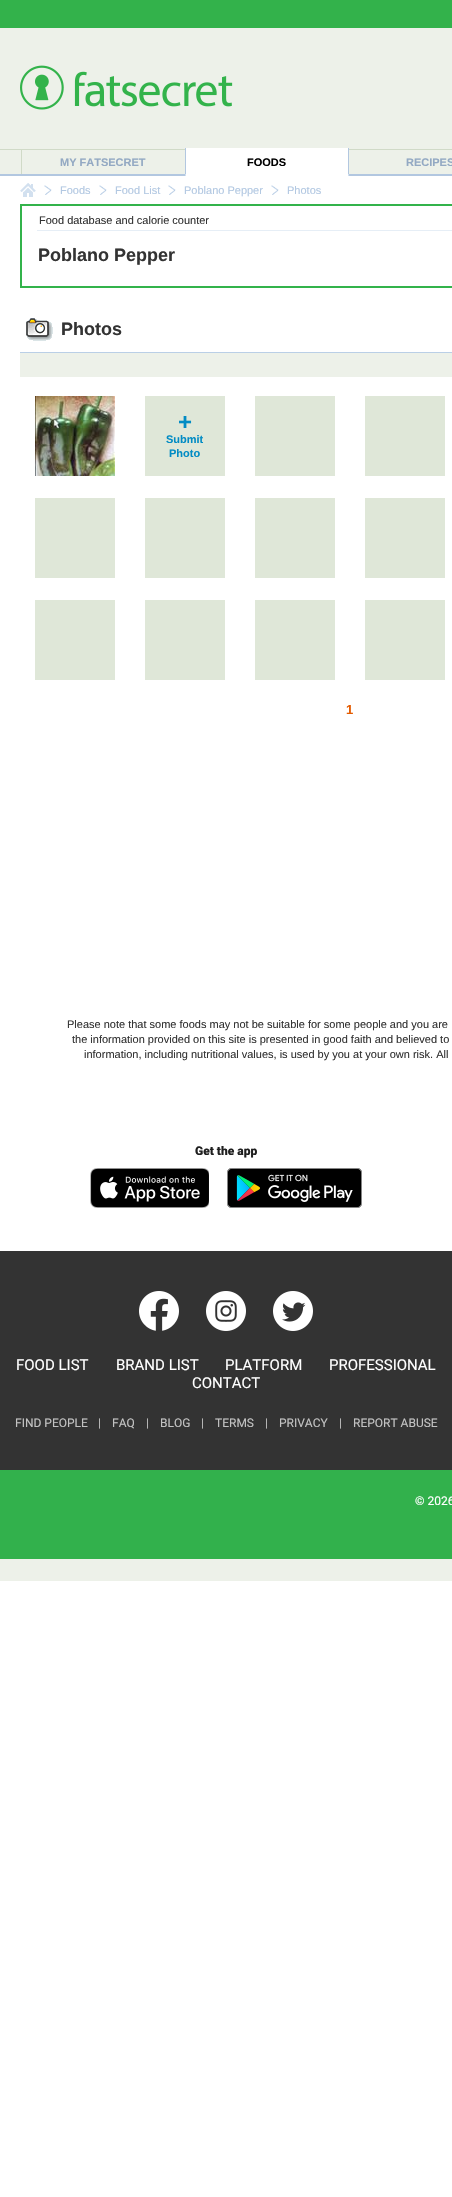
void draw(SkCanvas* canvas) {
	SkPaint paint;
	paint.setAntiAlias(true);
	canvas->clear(0xffffffff);
	paint.setColor(0xff33b24b);
	canvas->drawRect(SkRect::MakeXYWH(0, 0, 452, 28), paint);
	paint.setColor(0xffedf1e9);
	canvas->drawRect(SkRect::MakeXYWH(0, 28, 452, 121), paint);
	canvas->drawImageRect(SkImages::DeferredFromEncodedData(SkData::MakeFromFileName("img1.png")), SkRect::MakeXYWH(20, 65, 213, 45), SkSamplingOptions());
	canvas->drawImageRect(SkImages::DeferredFromEncodedData(SkData::MakeFromFileName("img2.png")), SkRect::MakeXYWH(0, 149, 452, 27), SkSamplingOptions());
	paint.setColor(0xffd0dac7);
	canvas->drawRect(SkRect::MakeXYWH(21, 150, 1, 24), paint);
	SkFont f1(fontMgr->matchFamilyStyle("Liberation Sans", SkFontStyle::Bold()), 11);
	f1.setSubpixel(true);
	paint.setColor(0xff93a9c3);
	canvas->drawString("MY FATSECRET", 60, 166, f1, paint);
	canvas->drawImageRect(SkImages::DeferredFromEncodedData(SkData::MakeFromFileName("img3.png")), SkRect::MakeXYWH(185, 148, 1, 28), SkSamplingOptions());
	paint.setColor(0xffffffff);
	canvas->drawRect(SkRect::MakeXYWH(186, 148, 162, 28), paint);
	paint.setColor(0xff000000);
	canvas->drawString("FOODS", 247, 166, f1, paint);
	canvas->drawImageRect(SkImages::DeferredFromEncodedData(SkData::MakeFromFileName("img3.png")), SkRect::MakeXYWH(348, 148, 1, 28), SkSamplingOptions());
	paint.setColor(0xff93a9c3);
	canvas->drawString("RECIPES", 406, 166, f1, paint);
	canvas->drawImageRect(SkImages::DeferredFromEncodedData(SkData::MakeFromFileName("img4.png")), SkRect::MakeXYWH(20, 183, 16, 14), SkSamplingOptions());
	canvas->drawImageRect(SkImages::DeferredFromEncodedData(SkData::MakeFromFileName("img5.png")), SkRect::MakeXYWH(44, 185, 8, 10), SkSamplingOptions());
	SkFont f2(fontMgr->matchFamilyStyle("Liberation Sans", SkFontStyle::Normal()), 11);
	f2.setSubpixel(true);
	paint.setColor(0xffb2c8e2);
	canvas->drawString("Foods", 60, 194, f2, paint);
	canvas->drawImageRect(SkImages::DeferredFromEncodedData(SkData::MakeFromFileName("img5.png")), SkRect::MakeXYWH(99, 185, 8, 10), SkSamplingOptions());
	canvas->drawString("Food List", 115, 194, f2, paint);
	canvas->drawImageRect(SkImages::DeferredFromEncodedData(SkData::MakeFromFileName("img5.png")), SkRect::MakeXYWH(168, 185, 8, 10), SkSamplingOptions());
	canvas->drawString("Poblano Pepper", 184, 194, f2, paint);
	canvas->drawImageRect(SkImages::DeferredFromEncodedData(SkData::MakeFromFileName("img5.png")), SkRect::MakeXYWH(271, 185, 8, 10), SkSamplingOptions());
	canvas->drawString("Photos", 287, 194, f2, paint);
	paint.setStroke(true);
	paint.setStrokeWidth(2);
	paint.setColor(0xff33b34b);
	canvas->drawRect(SkRect::MakeXYWH(21, 205, 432, 82), paint);
	paint.setStroke(false);
	paint.setColor(0xffe6eef6);
	canvas->drawRect(SkRect::MakeXYWH(37, 230, 415, 1), paint);
	paint.setColor(0xff333333);
	canvas->drawString("Food database and calorie counter", 39, 224, f2, paint);
	SkFont f3(fontMgr->matchFamilyStyle("Liberation Sans", SkFontStyle::Bold()), 18);
	f3.setSubpixel(true);
	canvas->drawString("Poblano Pepper", 38, 261, f3, paint);
	canvas->drawImageRect(SkImages::DeferredFromEncodedData(SkData::MakeFromFileName("img6.png")), SkRect::MakeXYWH(26, 318, 27, 23), SkSamplingOptions());
	canvas->drawString("Photos", 61, 335, f3, paint);
	paint.setColor(0xffedf1e9);
	canvas->drawRect(SkRect::MakeXYWH(20, 353, 432, 24), paint);
	paint.setColor(0xffbacfe6);
	canvas->drawRect(SkRect::MakeXYWH(20, 352, 432, 1), paint);
	canvas->drawImageRect(SkImages::DeferredFromEncodedData(SkData::MakeFromFileName("img7.png")), SkRect::MakeXYWH(35, 396, 80, 80), SkSamplingOptions());
	paint.setColor(0xffdfe7d8);
	canvas->drawRect(SkRect::MakeXYWH(145, 396, 80, 80), paint);
	SkFont f4(fontMgr->matchFamilyStyle("Liberation Sans", SkFontStyle::Bold()), 24);
	f4.setSubpixel(true);
	paint.setColor(0xff028cc4);
	canvas->drawString("+", 178, 430, f4, paint);
	canvas->drawString("Submit", 166, 443, f1, paint);
	canvas->drawString("Photo", 169, 457, f1, paint);
	paint.setColor(0xffdfe7d8);
	canvas->drawRect(SkRect::MakeXYWH(255, 396, 80, 80), paint);
	canvas->drawRect(SkRect::MakeXYWH(365, 396, 80, 80), paint);
	canvas->drawRect(SkRect::MakeXYWH(35, 498, 80, 80), paint);
	canvas->drawRect(SkRect::MakeXYWH(145, 498, 80, 80), paint);
	canvas->drawRect(SkRect::MakeXYWH(255, 498, 80, 80), paint);
	canvas->drawRect(SkRect::MakeXYWH(365, 498, 80, 80), paint);
	canvas->drawRect(SkRect::MakeXYWH(35, 600, 80, 80), paint);
	canvas->drawRect(SkRect::MakeXYWH(145, 600, 80, 80), paint);
	canvas->drawRect(SkRect::MakeXYWH(255, 600, 80, 80), paint);
	canvas->drawRect(SkRect::MakeXYWH(365, 600, 80, 80), paint);
	SkFont f5(fontMgr->matchFamilyStyle("Liberation Sans", SkFontStyle::Bold()), 13);
	f5.setSubpixel(true);
	paint.setColor(0xffe45b00);
	canvas->drawString("1", 346, 714, f5, paint);
	paint.setColor(0xff333333);
	canvas->drawString("Please note that some foods may not be suitable for some people and you are", 67, 1028, f2, paint);
	canvas->drawString("the information provided on this site is presented in good faith and believed to", 72, 1043, f2, paint);
	canvas->drawString("information, including nutritional values, is used by you at your own risk. All", 84, 1058, f2, paint);
	SkFont f6(fontMgr->matchFamilyStyle("Roboto", SkFontStyle(900, SkFontStyle::kNormal_Width, SkFontStyle::kUpright_Slant)), 12);
	f6.setSubpixel(true);
	paint.setColor(0xff1f1f1f);
	canvas->drawString("Get the app", 195, 1155, f6, paint);
	canvas->drawImageRect(SkImages::DeferredFromEncodedData(SkData::MakeFromFileName("img8.png")), SkRect::MakeXYWH(90, 1168, 119, 40), SkSamplingOptions());
	canvas->drawImageRect(SkImages::DeferredFromEncodedData(SkData::MakeFromFileName("img9.png")), SkRect::MakeXYWH(227, 1168, 135, 40), SkSamplingOptions());
	paint.setColor(0xff333333);
	canvas->drawRect(SkRect::MakeXYWH(0, 1251, 452, 219), paint);
	canvas->drawImageRect(SkImages::DeferredFromEncodedData(SkData::MakeFromFileName("img10.png")), SkRect::MakeXYWH(139, 1291, 40, 40), SkSamplingOptions());
	canvas->drawImageRect(SkImages::DeferredFromEncodedData(SkData::MakeFromFileName("img11.png")), SkRect::MakeXYWH(206, 1291, 40, 40), SkSamplingOptions());
	canvas->drawImageRect(SkImages::DeferredFromEncodedData(SkData::MakeFromFileName("img12.png")), SkRect::MakeXYWH(273, 1291, 40, 40), SkSamplingOptions());
	SkFont f7(fontMgr->matchFamilyStyle("Roboto", SkFontStyle::Normal()), 15);
	f7.setSubpixel(true);
	paint.setColor(0xffffffff);
	canvas->drawString("FOOD LIST", 16, 1370, f7, paint);
	canvas->drawString("BRAND LIST", 116, 1370, f7, paint);
	canvas->drawString("PLATFORM", 225, 1370, f7, paint);
	canvas->drawString("PROFESSIONAL", 329, 1370, f7, paint);
	canvas->drawString("CONTACT", 192, 1388, f7, paint);
	SkFont f8(fontMgr->matchFamilyStyle("Roboto", SkFontStyle::Normal()), 12);
	f8.setSubpixel(true);
	paint.setColor(0xffc2c2c2);
	canvas->drawString("FIND PEOPLE", 15, 1427, f8, paint);
	canvas->drawString("|", 98, 1427, f8, paint);
	canvas->drawString("FAQ", 112, 1427, f8, paint);
	canvas->drawString("|", 146, 1427, f8, paint);
	canvas->drawString("BLOG", 160, 1427, f8, paint);
	canvas->drawString("|", 201, 1427, f8, paint);
	canvas->drawString("TERMS", 215, 1427, f8, paint);
	canvas->drawString("|", 265, 1427, f8, paint);
	canvas->drawString("PRIVACY", 279, 1427, f8, paint);
	canvas->drawString("|", 339, 1427, f8, paint);
	canvas->drawString("REPORT ABUSE", 353, 1427, f8, paint);
	paint.setColor(0xff32b14c);
	canvas->drawRect(SkRect::MakeXYWH(0, 1470, 452, 89), paint);
	paint.setColor(0xffedf1e9);
	canvas->drawRect(SkRect::MakeXYWH(0, 1559, 452, 22), paint);
	paint.setColor(0xffffffff);
	canvas->drawString("© 2026", 415, 1505, f8, paint);
}
